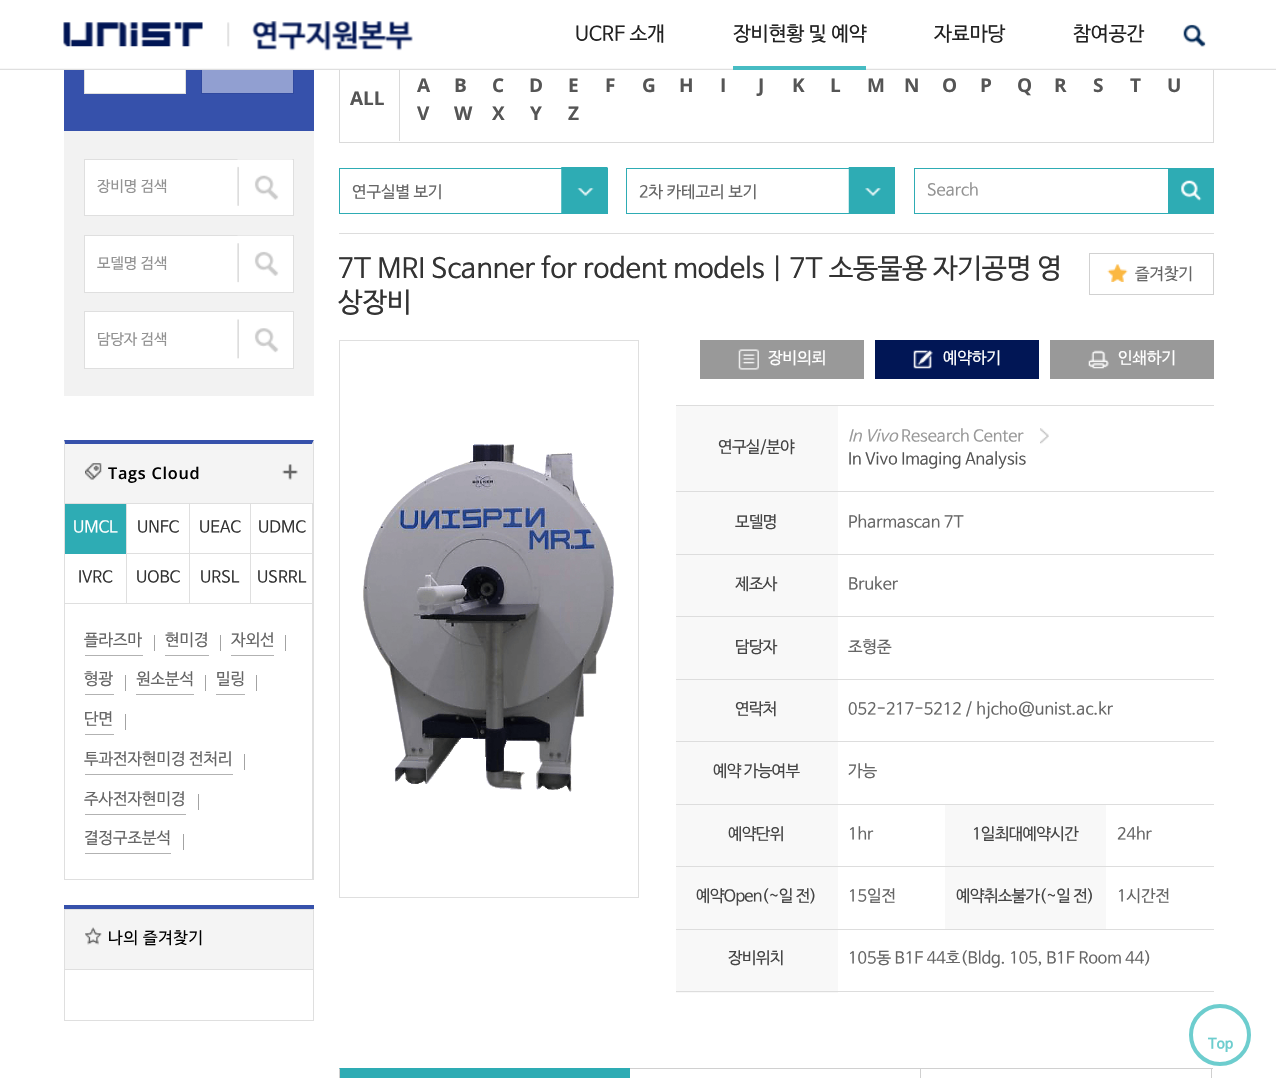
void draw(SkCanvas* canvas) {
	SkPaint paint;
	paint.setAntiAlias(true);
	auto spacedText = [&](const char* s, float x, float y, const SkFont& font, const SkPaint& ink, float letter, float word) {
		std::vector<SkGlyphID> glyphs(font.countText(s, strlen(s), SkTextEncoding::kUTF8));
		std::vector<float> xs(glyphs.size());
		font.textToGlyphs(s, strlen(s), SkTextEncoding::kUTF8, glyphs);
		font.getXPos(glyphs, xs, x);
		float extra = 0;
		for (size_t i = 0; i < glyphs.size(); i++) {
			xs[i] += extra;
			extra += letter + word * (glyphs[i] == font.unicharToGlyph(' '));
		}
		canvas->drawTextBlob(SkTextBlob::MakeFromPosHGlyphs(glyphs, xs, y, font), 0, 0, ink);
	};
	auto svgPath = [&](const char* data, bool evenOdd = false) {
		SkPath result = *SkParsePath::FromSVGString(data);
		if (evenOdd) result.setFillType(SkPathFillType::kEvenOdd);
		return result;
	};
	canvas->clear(0xffffffff);
	paint.setColor(0xff3651ab);
	canvas->drawRect(SkRect::MakeXYWH(64, 70, 250, 61), paint);
	paint.setColor(0xffffffff);
	canvas->drawRect(SkRect::MakeXYWH(85, 70, 100, 23), paint);
	paint.setStroke(true);
	paint.setStrokeWidth(1);
	paint.setColor(0xffdfdfdf);
	canvas->drawRect(SkRect::MakeXYWH(84.5, 36.5, 101, 57), paint);
	paint.setStroke(false);
	paint.setColor(0xff919fd1);
	canvas->drawRect(SkRect::MakeXYWH(202, 70, 91, 23), paint);
	paint.setStroke(true);
	paint.setColor(0xff30499f);
	canvas->drawRect(SkRect::MakeXYWH(201.5, 36.5, 92, 57), paint);
	paint.setColor(0xffdadada);
	canvas->drawRect(SkRect::MakeXYWH(339.5, 55.5, 874, 87), paint);
	paint.setStroke(false);
	paint.setColor(0xffffffff);
	canvas->drawRect(SkRect::MakeXYWH(84, 36, 1130, 33), paint);
	canvas->drawImageRect(SkImages::DeferredFromEncodedData(SkData::MakeFromFileName("img1.png")), SkRect::MakeXYWH(0, 68, 1276, 2), SkSamplingOptions());
	canvas->drawImageRect(SkImages::DeferredFromEncodedData(SkData::MakeFromFileName("img2.png")), SkRect::MakeXYWH(63, 22, 140, 25), SkSamplingOptions());
	canvas->drawImageRect(SkImages::DeferredFromEncodedData(SkData::MakeFromFileName("img3.png")), SkRect::MakeXYWH(227, 21, 186, 30), SkSamplingOptions());
	SkFont f1(fontMgr->matchFamilyStyle("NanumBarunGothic", SkFontStyle::Normal()), 20);
	f1.setSubpixel(true);
	paint.setColor(0xff222222);
	canvas->drawString("UCRF 소개", 575, 40, f1, paint);
	paint.setColor(0xff47bcc3);
	canvas->drawRect(SkRect::MakeXYWH(733, 66, 133, 4), paint);
	paint.setColor(0xff222222);
	canvas->drawString("장비현황 및 예약", 733, 40, f1, paint);
	canvas->drawString("자료마당", 934, 40, f1, paint);
	canvas->drawString("참여공간", 1073, 40, f1, paint);
	canvas->drawImageRect(SkImages::DeferredFromEncodedData(SkData::MakeFromFileName("img4.png")), SkRect::MakeXYWH(1183, 24, 23, 23), SkSamplingOptions());
	paint.setColor(0xfff2f2f2);
	canvas->drawRect(SkRect::MakeXYWH(64, 131, 250, 265), paint);
	paint.setColor(0xffffffff);
	canvas->drawRect(SkRect::MakeXYWH(84.5, 159.5, 209, 56), paint);
	paint.setStroke(true);
	paint.setColor(0xffdfdfdf);
	canvas->drawRect(SkRect::MakeXYWH(84.5, 159.5, 209, 56), paint);
	SkFont f2(fontMgr->matchFamilyStyle("NanumBarunGothic", SkFontStyle::Normal()), 15);
	f2.setSubpixel(true);
	paint.setStroke(false);
	paint.setColor(0xff939393);
	canvas->drawString("장비명 검색", 97, 191, f2, paint);
	canvas->drawImageRect(SkImages::DeferredFromEncodedData(SkData::MakeFromFileName("img5.png")), SkRect::MakeXYWH(237, 159, 56, 47), SkSamplingOptions());
	paint.setColor(0xffffffff);
	canvas->drawRect(SkRect::MakeXYWH(84.5, 235.5, 209, 57), paint);
	paint.setStroke(true);
	paint.setColor(0xffdfdfdf);
	canvas->drawRect(SkRect::MakeXYWH(84.5, 235.5, 209, 57), paint);
	paint.setStroke(false);
	paint.setColor(0xff939393);
	canvas->drawString("모델명 검색", 97, 268, f2, paint);
	canvas->drawImageRect(SkImages::DeferredFromEncodedData(SkData::MakeFromFileName("img6.png")), SkRect::MakeXYWH(237, 235, 56, 48), SkSamplingOptions());
	paint.setColor(0xffffffff);
	canvas->drawRect(SkRect::MakeXYWH(84.5, 311.5, 209, 57), paint);
	paint.setStroke(true);
	paint.setColor(0xffdfdfdf);
	canvas->drawRect(SkRect::MakeXYWH(84.5, 311.5, 209, 57), paint);
	canvas->save();
	canvas->clipRect(SkRect::MakeXYWH(98, 331, 133, 18));
	paint.setStroke(false);
	paint.setColor(0xff939393);
	canvas->drawString("담당자 검색", 97, 344, f2, paint);
	canvas->restore();
	canvas->drawImageRect(SkImages::DeferredFromEncodedData(SkData::MakeFromFileName("img7.png")), SkRect::MakeXYWH(237, 319, 42, 40), SkSamplingOptions());
	paint.setColor(0xff3651ab);
	canvas->drawPath(svgPath("M64 440H314L312 444H65Z"), paint);
	paint.setColor(0xffdfdfdf);
	canvas->drawPath(svgPath("M314 440V880L312 879V444Z"), paint);
	canvas->drawRect(SkRect::MakeXYWH(64, 879, 250, 1), paint);
	canvas->drawPath(svgPath("M64 880V440L65 444V879Z"), paint);
	paint.setColor(0xfff4f4f4);
	canvas->drawRect(SkRect::MakeXYWH(65, 444, 248, 59), paint);
	paint.setColor(0xffdfdfdf);
	canvas->drawRect(SkRect::MakeXYWH(65, 503, 248, 1), paint);
	canvas->drawImageRect(SkImages::DeferredFromEncodedData(SkData::MakeFromFileName("img8.png")), SkRect::MakeXYWH(85, 463, 17, 17), SkSamplingOptions());
	SkFont f3(fontMgr->matchFamilyStyle("Open Sans", SkFontStyle(600, SkFontStyle::kNormal_Width, SkFontStyle::kUpright_Slant)), 16.25);
	f3.setSubpixel(true);
	paint.setColor(0xff000000);
	spacedText("Tags Cloud", 108, 479, f3, paint, 0.75, 0);
	canvas->drawImageRect(SkImages::DeferredFromEncodedData(SkData::MakeFromFileName("img9.png")), SkRect::MakeXYWH(282, 464, 16, 16), SkSamplingOptions());
	paint.setColor(0xff2eacb4);
	canvas->drawRect(SkRect::MakeXYWH(65, 504, 61, 50), paint);
	SkFont f4(fontMgr->matchFamilyStyle("NanumBarunGothic", SkFontStyle::Normal()), 16.25);
	f4.setSubpixel(true);
	paint.setColor(0xffffffff);
	canvas->drawString("UMCL", 73, 532, f4, paint);
	paint.setColor(0xffdfdfdf);
	canvas->drawRect(SkRect::MakeXYWH(126, 553, 187, 1), paint);
	canvas->drawRect(SkRect::MakeXYWH(126, 504, 1, 50), paint);
	paint.setColor(0xff333333);
	canvas->drawString("UNFC", 137, 532, f4, paint);
	paint.setColor(0xffdfdfdf);
	canvas->drawRect(SkRect::MakeXYWH(189, 504, 1, 50), paint);
	paint.setColor(0xff333333);
	canvas->drawString("UEAC", 199, 532, f4, paint);
	paint.setColor(0xffdfdfdf);
	canvas->drawRect(SkRect::MakeXYWH(250, 504, 1, 50), paint);
	paint.setColor(0xff333333);
	canvas->drawString("UDMC", 258, 532, f4, paint);
	paint.setColor(0xffdfdfdf);
	canvas->drawRect(SkRect::MakeXYWH(65, 603, 248, 1), paint);
	paint.setColor(0xff333333);
	canvas->drawString("IVRC", 78, 582, f4, paint);
	paint.setColor(0xffdfdfdf);
	canvas->drawRect(SkRect::MakeXYWH(126, 554, 1, 50), paint);
	paint.setColor(0xff333333);
	canvas->drawString("UOBC", 136, 582, f4, paint);
	paint.setColor(0xffdfdfdf);
	canvas->drawRect(SkRect::MakeXYWH(189, 554, 1, 50), paint);
	paint.setColor(0xff333333);
	canvas->drawString("URSL", 200, 582, f4, paint);
	paint.setColor(0xffdfdfdf);
	canvas->drawRect(SkRect::MakeXYWH(250, 554, 1, 50), paint);
	paint.setColor(0xff333333);
	canvas->drawString("USRRL", 257, 582, f4, paint);
	paint.setColor(0xffb2b2b2);
	canvas->drawRect(SkRect::MakeXYWH(85, 655, 58, 1), paint);
	paint.setColor(0xff666666);
	canvas->drawString("플라즈마", 84, 645, f4, paint);
	paint.setColor(0xffa3a3a3);
	canvas->drawRect(SkRect::MakeXYWH(154, 635, 1, 16), paint);
	paint.setColor(0xffb2b2b2);
	canvas->drawRect(SkRect::MakeXYWH(165, 655, 44, 1), paint);
	paint.setColor(0xff666666);
	canvas->drawString("현미경", 165, 645, f4, paint);
	paint.setColor(0xffa3a3a3);
	canvas->drawRect(SkRect::MakeXYWH(220, 635, 1, 16), paint);
	paint.setColor(0xffb2b2b2);
	canvas->drawRect(SkRect::MakeXYWH(231, 655, 43, 1), paint);
	paint.setColor(0xff666666);
	canvas->drawString("자외선", 231, 645, f4, paint);
	paint.setColor(0xffa3a3a3);
	canvas->drawRect(SkRect::MakeXYWH(285, 635, 1, 16), paint);
	paint.setColor(0xffb2b2b2);
	canvas->drawRect(SkRect::MakeXYWH(85, 694, 29, 1), paint);
	paint.setColor(0xff666666);
	canvas->drawString("형광", 84, 684, f4, paint);
	paint.setColor(0xffa3a3a3);
	canvas->drawRect(SkRect::MakeXYWH(125, 675, 1, 16), paint);
	paint.setColor(0xffb2b2b2);
	canvas->drawRect(SkRect::MakeXYWH(136, 694, 58, 1), paint);
	paint.setColor(0xff666666);
	canvas->drawString("원소분석", 136, 684, f4, paint);
	paint.setColor(0xffa3a3a3);
	canvas->drawRect(SkRect::MakeXYWH(205, 675, 1, 16), paint);
	paint.setColor(0xffb2b2b2);
	canvas->drawRect(SkRect::MakeXYWH(216, 694, 29, 1), paint);
	paint.setColor(0xff666666);
	canvas->drawString("밀링", 216, 684, f4, paint);
	paint.setColor(0xffa3a3a3);
	canvas->drawRect(SkRect::MakeXYWH(256, 675, 1, 16), paint);
	paint.setColor(0xffb2b2b2);
	canvas->drawRect(SkRect::MakeXYWH(85, 734, 29, 1), paint);
	paint.setColor(0xff666666);
	canvas->drawString("단면", 84, 724, f4, paint);
	paint.setColor(0xffa3a3a3);
	canvas->drawRect(SkRect::MakeXYWH(125, 714, 1, 16), paint);
	paint.setColor(0xffb2b2b2);
	canvas->drawRect(SkRect::MakeXYWH(85, 774, 148, 1), paint);
	paint.setColor(0xff666666);
	canvas->drawString("투과전자현미경 전처리", 84, 764, f4, paint);
	paint.setColor(0xffa3a3a3);
	canvas->drawRect(SkRect::MakeXYWH(244, 754, 1, 16), paint);
	paint.setColor(0xffb2b2b2);
	canvas->drawRect(SkRect::MakeXYWH(85, 814, 101, 1), paint);
	paint.setColor(0xff666666);
	canvas->drawString("주사전자현미경", 84, 804, f4, paint);
	paint.setColor(0xffa3a3a3);
	canvas->drawRect(SkRect::MakeXYWH(198, 794, 1, 16), paint);
	paint.setColor(0xffb2b2b2);
	canvas->drawRect(SkRect::MakeXYWH(85, 853, 86, 1), paint);
	paint.setColor(0xff666666);
	canvas->drawString("결정구조분석", 84, 843, f4, paint);
	paint.setColor(0xffa3a3a3);
	canvas->drawRect(SkRect::MakeXYWH(183, 834, 1, 16), paint);
	paint.setColor(0xff3651ab);
	canvas->drawRect(SkRect::MakeXYWH(64, 905, 250, 4), paint);
	paint.setStroke(true);
	paint.setColor(0xffdfdfdf);
	canvas->drawRect(SkRect::MakeXYWH(64.5, 909.5, 249, 111), paint);
	paint.setStroke(false);
	paint.setColor(0xfff4f4f4);
	canvas->drawRect(SkRect::MakeXYWH(65, 910, 248, 59), paint);
	paint.setColor(0xffdfdfdf);
	canvas->drawRect(SkRect::MakeXYWH(65, 969, 248, 1), paint);
	canvas->drawImageRect(SkImages::DeferredFromEncodedData(SkData::MakeFromFileName("img10.png")), SkRect::MakeXYWH(85, 927, 17, 18), SkSamplingOptions());
	paint.setColor(0xff000000);
	spacedText("나의 즐겨찾기", 108, 943, f4, paint, 0.75, 0);
	SkFont f5(fontMgr->matchFamilyStyle("Open Sans", SkFontStyle::Bold()), 19);
	f5.setSubpixel(true);
	paint.setColor(0xff555555);
	canvas->drawString("A", 417, 92, f5, paint);
	canvas->drawString("B", 454, 92, f5, paint);
	canvas->drawString("C", 492, 92, f5, paint);
	canvas->drawString("D", 529, 92, f5, paint);
	canvas->drawString("E", 568, 92, f5, paint);
	canvas->drawString("F", 605, 92, f5, paint);
	canvas->drawString("G", 642, 92, f5, paint);
	canvas->drawString("H", 679, 92, f5, paint);
	canvas->drawString("I", 720, 92, f5, paint);
	canvas->drawString("J", 758, 92, f5, paint);
	canvas->drawString("K", 792, 92, f5, paint);
	canvas->drawString("L", 830, 92, f5, paint);
	canvas->drawString("M", 867, 92, f5, paint);
	canvas->drawString("N", 904, 92, f5, paint);
	canvas->drawString("O", 942, 92, f5, paint);
	canvas->drawString("P", 980, 92, f5, paint);
	canvas->drawString("Q", 1017, 92, f5, paint);
	canvas->drawString("R", 1054, 92, f5, paint);
	canvas->drawString("S", 1093, 92, f5, paint);
	canvas->drawString("T", 1130, 92, f5, paint);
	canvas->drawString("U", 1167, 92, f5, paint);
	paint.setColor(0xffdadada);
	canvas->drawRect(SkRect::MakeXYWH(399, 70, 1, 71), paint);
	paint.setColor(0xff555555);
	canvas->drawString("ALL", 350, 105, f5, paint);
	canvas->drawString("V", 417, 120, f5, paint);
	canvas->drawString("W", 454, 120, f5, paint);
	canvas->drawString("X", 492, 120, f5, paint);
	canvas->drawString("Y", 530, 120, f5, paint);
	canvas->drawString("Z", 568, 120, f5, paint);
	canvas->drawImageRect(SkImages::DeferredFromEncodedData(SkData::MakeFromFileName("img11.png")), SkRect::MakeXYWH(561, 167, 47, 46), SkSamplingOptions());
	paint.setStroke(true);
	paint.setColor(0xff2eacb4);
	canvas->drawRect(SkRect::MakeXYWH(339.5, 168.5, 268, 45), paint);
	paint.setStroke(false);
	paint.setColor(0xff666666);
	canvas->drawString("연구실별 보기", 352, 197, f4, paint);
	canvas->drawImageRect(SkImages::DeferredFromEncodedData(SkData::MakeFromFileName("img12.png")), SkRect::MakeXYWH(848, 167, 47, 46), SkSamplingOptions());
	paint.setStroke(true);
	paint.setColor(0xff2eacb4);
	canvas->drawRect(SkRect::MakeXYWH(626.5, 168.5, 268, 45), paint);
	paint.setStroke(false);
	paint.setColor(0xff666666);
	canvas->drawString("2차 카테고리 보기", 639, 197, f4, paint);
	paint.setStroke(true);
	paint.setColor(0xff2eacb4);
	canvas->drawRect(SkRect::MakeXYWH(914.5, 168.5, 264, 45), paint);
	paint.setStroke(false);
	paint.setColor(0xff939393);
	canvas->drawString("Search", 927, 195, f4, paint);
	paint.setColor(0xff2eacb4);
	canvas->drawRect(SkRect::MakeXYWH(1168, 168, 46, 46), paint);
	canvas->drawImageRect(SkImages::DeferredFromEncodedData(SkData::MakeFromFileName("img13.png")), SkRect::MakeXYWH(1181, 180, 21, 21), SkSamplingOptions());
	paint.setColor(0xffdddddd);
	canvas->drawRect(SkRect::MakeXYWH(339, 233, 875, 1), paint);
	SkFont f6(fontMgr->matchFamilyStyle("NanumBarunGothic", SkFontStyle::Normal()), 27.5);
	f6.setSubpixel(true);
	paint.setColor(0xff333333);
	canvas->drawString("7T MRI Scanner for rodent models | 7T 소동물용 자기공명 영", 338, 277, f6, paint);
	canvas->drawString("상장비", 338, 311, f6, paint);
	canvas->drawImageRect(SkImages::DeferredFromEncodedData(SkData::MakeFromFileName("img14.png")), SkRect::MakeXYWH(1107, 264, 21, 18), SkSamplingOptions());
	paint.setStroke(true);
	paint.setColor(0xffd1d1d1);
	canvas->drawRect(SkRect::MakeXYWH(1089.5, 253.5, 124, 41), paint);
	paint.setStroke(false);
	paint.setColor(0xff666666);
	canvas->drawString("즐겨찾기", 1135, 279, f4, paint);
	paint.setStroke(true);
	paint.setColor(0xffdfdfdf);
	canvas->drawRect(SkRect::MakeXYWH(339.5, 340.5, 299, 557), paint);
	canvas->drawImageRect(SkImages::DeferredFromEncodedData(SkData::MakeFromFileName("img15.png")), SkRect::MakeXYWH(363, 444, 251, 348), SkSamplingOptions());
	paint.setStroke(false);
	paint.setColor(0xff999999);
	canvas->drawRect(SkRect::MakeXYWH(700, 340, 164, 39), paint);
	canvas->drawImageRect(SkImages::DeferredFromEncodedData(SkData::MakeFromFileName("img16.png")), SkRect::MakeXYWH(738, 349, 21, 21), SkSamplingOptions());
	paint.setColor(0xffffffff);
	canvas->drawString("장비의뢰", 768, 363, f4, paint);
	paint.setColor(0xff011655);
	canvas->drawRect(SkRect::MakeXYWH(875, 340, 164, 39), paint);
	canvas->drawImageRect(SkImages::DeferredFromEncodedData(SkData::MakeFromFileName("img17.png")), SkRect::MakeXYWH(913, 350, 20, 19), SkSamplingOptions());
	paint.setColor(0xffffffff);
	canvas->drawString("예약하기", 943, 363, f4, paint);
	paint.setColor(0xff999999);
	canvas->drawRect(SkRect::MakeXYWH(1050, 340, 164, 39), paint);
	canvas->drawImageRect(SkImages::DeferredFromEncodedData(SkData::MakeFromFileName("img18.png")), SkRect::MakeXYWH(1088, 350, 21, 19), SkSamplingOptions());
	paint.setColor(0xffffffff);
	canvas->drawString("인쇄하기", 1118, 363, f4, paint);
	paint.setColor(0xffdddddd);
	canvas->drawRect(SkRect::MakeXYWH(676, 405, 538, 1), paint);
	paint.setColor(0xfff8f8f8);
	canvas->drawRect(SkRect::MakeXYWH(676, 406, 162, 148), paint);
	paint.setColor(0xffdddddd);
	canvas->drawRect(SkRect::MakeXYWH(676, 491, 538, 1), paint);
	paint.setColor(0xff444444);
	spacedText("연구실/분야", 718, 452, f4, paint, -0.6, 0);
	SkFont f7(fontMgr->matchFamilyStyle("NanumBarunGothic", SkFontStyle::Italic()), 16.25);
	f7.setSubpixel(true);
	paint.setColor(0xff999999);
	canvas->drawString("In Vivo", 848, 441, f7, paint);
	canvas->drawString("Research Center", 901, 441, f4, paint);
	canvas->drawImageRect(SkImages::DeferredFromEncodedData(SkData::MakeFromFileName("img19.png")), SkRect::MakeXYWH(1040, 428, 9, 16), SkSamplingOptions());
	paint.setColor(0xff555555);
	canvas->drawString("In Vivo Imaging Analysis", 848, 464, f4, paint);
	paint.setColor(0xffdddddd);
	canvas->drawRect(SkRect::MakeXYWH(676, 554, 538, 1), paint);
	paint.setColor(0xff444444);
	spacedText("모델명", 735, 527, f4, paint, -0.6, 0);
	paint.setColor(0xff666666);
	canvas->drawString("Pharmascan 7T", 848, 527, f4, paint);
	paint.setColor(0xfff8f8f8);
	canvas->drawRect(SkRect::MakeXYWH(676, 555, 162, 124), paint);
	paint.setColor(0xffdddddd);
	canvas->drawRect(SkRect::MakeXYWH(676, 616, 538, 1), paint);
	paint.setColor(0xff444444);
	spacedText("제조사", 735, 589, f4, paint, -0.6, 0);
	paint.setColor(0xff666666);
	canvas->drawString("Bruker", 848, 589, f4, paint);
	paint.setColor(0xffdddddd);
	canvas->drawRect(SkRect::MakeXYWH(676, 679, 538, 1), paint);
	paint.setColor(0xff444444);
	spacedText("담당자", 735, 652, f4, paint, -0.6, 0);
	paint.setColor(0xff666666);
	canvas->drawString("조형준", 848, 652, f4, paint);
	paint.setColor(0xfff8f8f8);
	canvas->drawRect(SkRect::MakeXYWH(676, 680, 162, 124), paint);
	paint.setColor(0xffdddddd);
	canvas->drawRect(SkRect::MakeXYWH(676, 741, 538, 1), paint);
	paint.setColor(0xff444444);
	spacedText("연락처", 735, 714, f4, paint, -0.6, 0);
	paint.setColor(0xff666666);
	canvas->drawString("052-217-5212 / hjcho@unist.ac.kr", 848, 714, f4, paint);
	paint.setColor(0xffdddddd);
	canvas->drawRect(SkRect::MakeXYWH(676, 804, 538, 1), paint);
	paint.setColor(0xff444444);
	spacedText("예약 가능여부", 713, 776, f4, paint, -0.6, 0);
	paint.setColor(0xff666666);
	canvas->drawString("가능", 848, 776, f4, paint);
	paint.setColor(0xfff8f8f8);
	canvas->drawRect(SkRect::MakeXYWH(676, 805, 162, 124), paint);
	paint.setColor(0xffdddddd);
	canvas->drawRect(SkRect::MakeXYWH(676, 866, 269, 1), paint);
	paint.setColor(0xff444444);
	spacedText("예약단위", 728, 839, f4, paint, -0.6, 0);
	paint.setColor(0xff666666);
	canvas->drawString("1hr", 848, 839, f4, paint);
	paint.setColor(0xfff8f8f8);
	canvas->drawRect(SkRect::MakeXYWH(945, 805, 161, 124), paint);
	paint.setColor(0xffdddddd);
	canvas->drawRect(SkRect::MakeXYWH(945, 866, 269, 1), paint);
	paint.setColor(0xff444444);
	spacedText("1일최대예약시간", 972, 839, f4, paint, -0.6, 0);
	paint.setColor(0xff666666);
	canvas->drawString("24hr", 1117, 839, f4, paint);
	paint.setColor(0xffdddddd);
	canvas->drawRect(SkRect::MakeXYWH(676, 929, 538, 1), paint);
	paint.setColor(0xff444444);
	spacedText("예약Open(~일 전)", 696, 901, f4, paint, -0.6, 0);
	paint.setColor(0xff666666);
	canvas->drawString("15일전", 848, 901, f4, paint);
	paint.setColor(0xff444444);
	spacedText("예약취소불가(~일 전)", 956, 901, f4, paint, -0.6, 0);
	paint.setColor(0xff666666);
	canvas->drawString("1시간전", 1117, 901, f4, paint);
	paint.setColor(0xfff8f8f8);
	canvas->drawRect(SkRect::MakeXYWH(676, 930, 162, 63), paint);
	paint.setColor(0xffdddddd);
	canvas->drawRect(SkRect::MakeXYWH(676, 991, 538, 1), paint);
	paint.setColor(0xff444444);
	spacedText("장비위치", 728, 963, f4, paint, -0.6, 0);
	paint.setColor(0xff666666);
	canvas->drawString("105동 B1F 44호(Bldg. 105, B1F Room 44)", 848, 963, f4, paint);
	paint.setColor(0xff2eacb4);
	canvas->drawRect(SkRect::MakeXYWH(340, 1069, 289, 9), paint);
	canvas->drawRect(SkRect::MakeXYWH(339, 1068, 291, 1), paint);
	canvas->drawRect(SkRect::MakeXYWH(629, 1068, 1, 10), paint);
	paint.setColor(0xffd0d0d0);
	canvas->drawPath(svgPath("M339 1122V1068L340 1069V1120Z"), paint);
	canvas->drawRect(SkRect::MakeXYWH(630, 1068, 583, 1), paint);
	canvas->drawPath(svgPath("M921 1068V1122L920 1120V1069Z"), paint);
	canvas->drawPath(svgPath("M1212 1068V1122L1211 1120V1069Z"), paint);
	paint.setStroke(true);
	paint.setStrokeWidth(4);
	paint.setColor(0xff6dcdce);
	canvas->drawCircle(1220, 1035, 29, paint);
	SkFont f8(fontMgr->matchFamilyStyle("NanumBarunGothic", SkFontStyle::Bold()), 14);
	f8.setSubpixel(true);
	paint.setStroke(false);
	canvas->drawString("Top", 1208, 1048, f8, paint);
}
